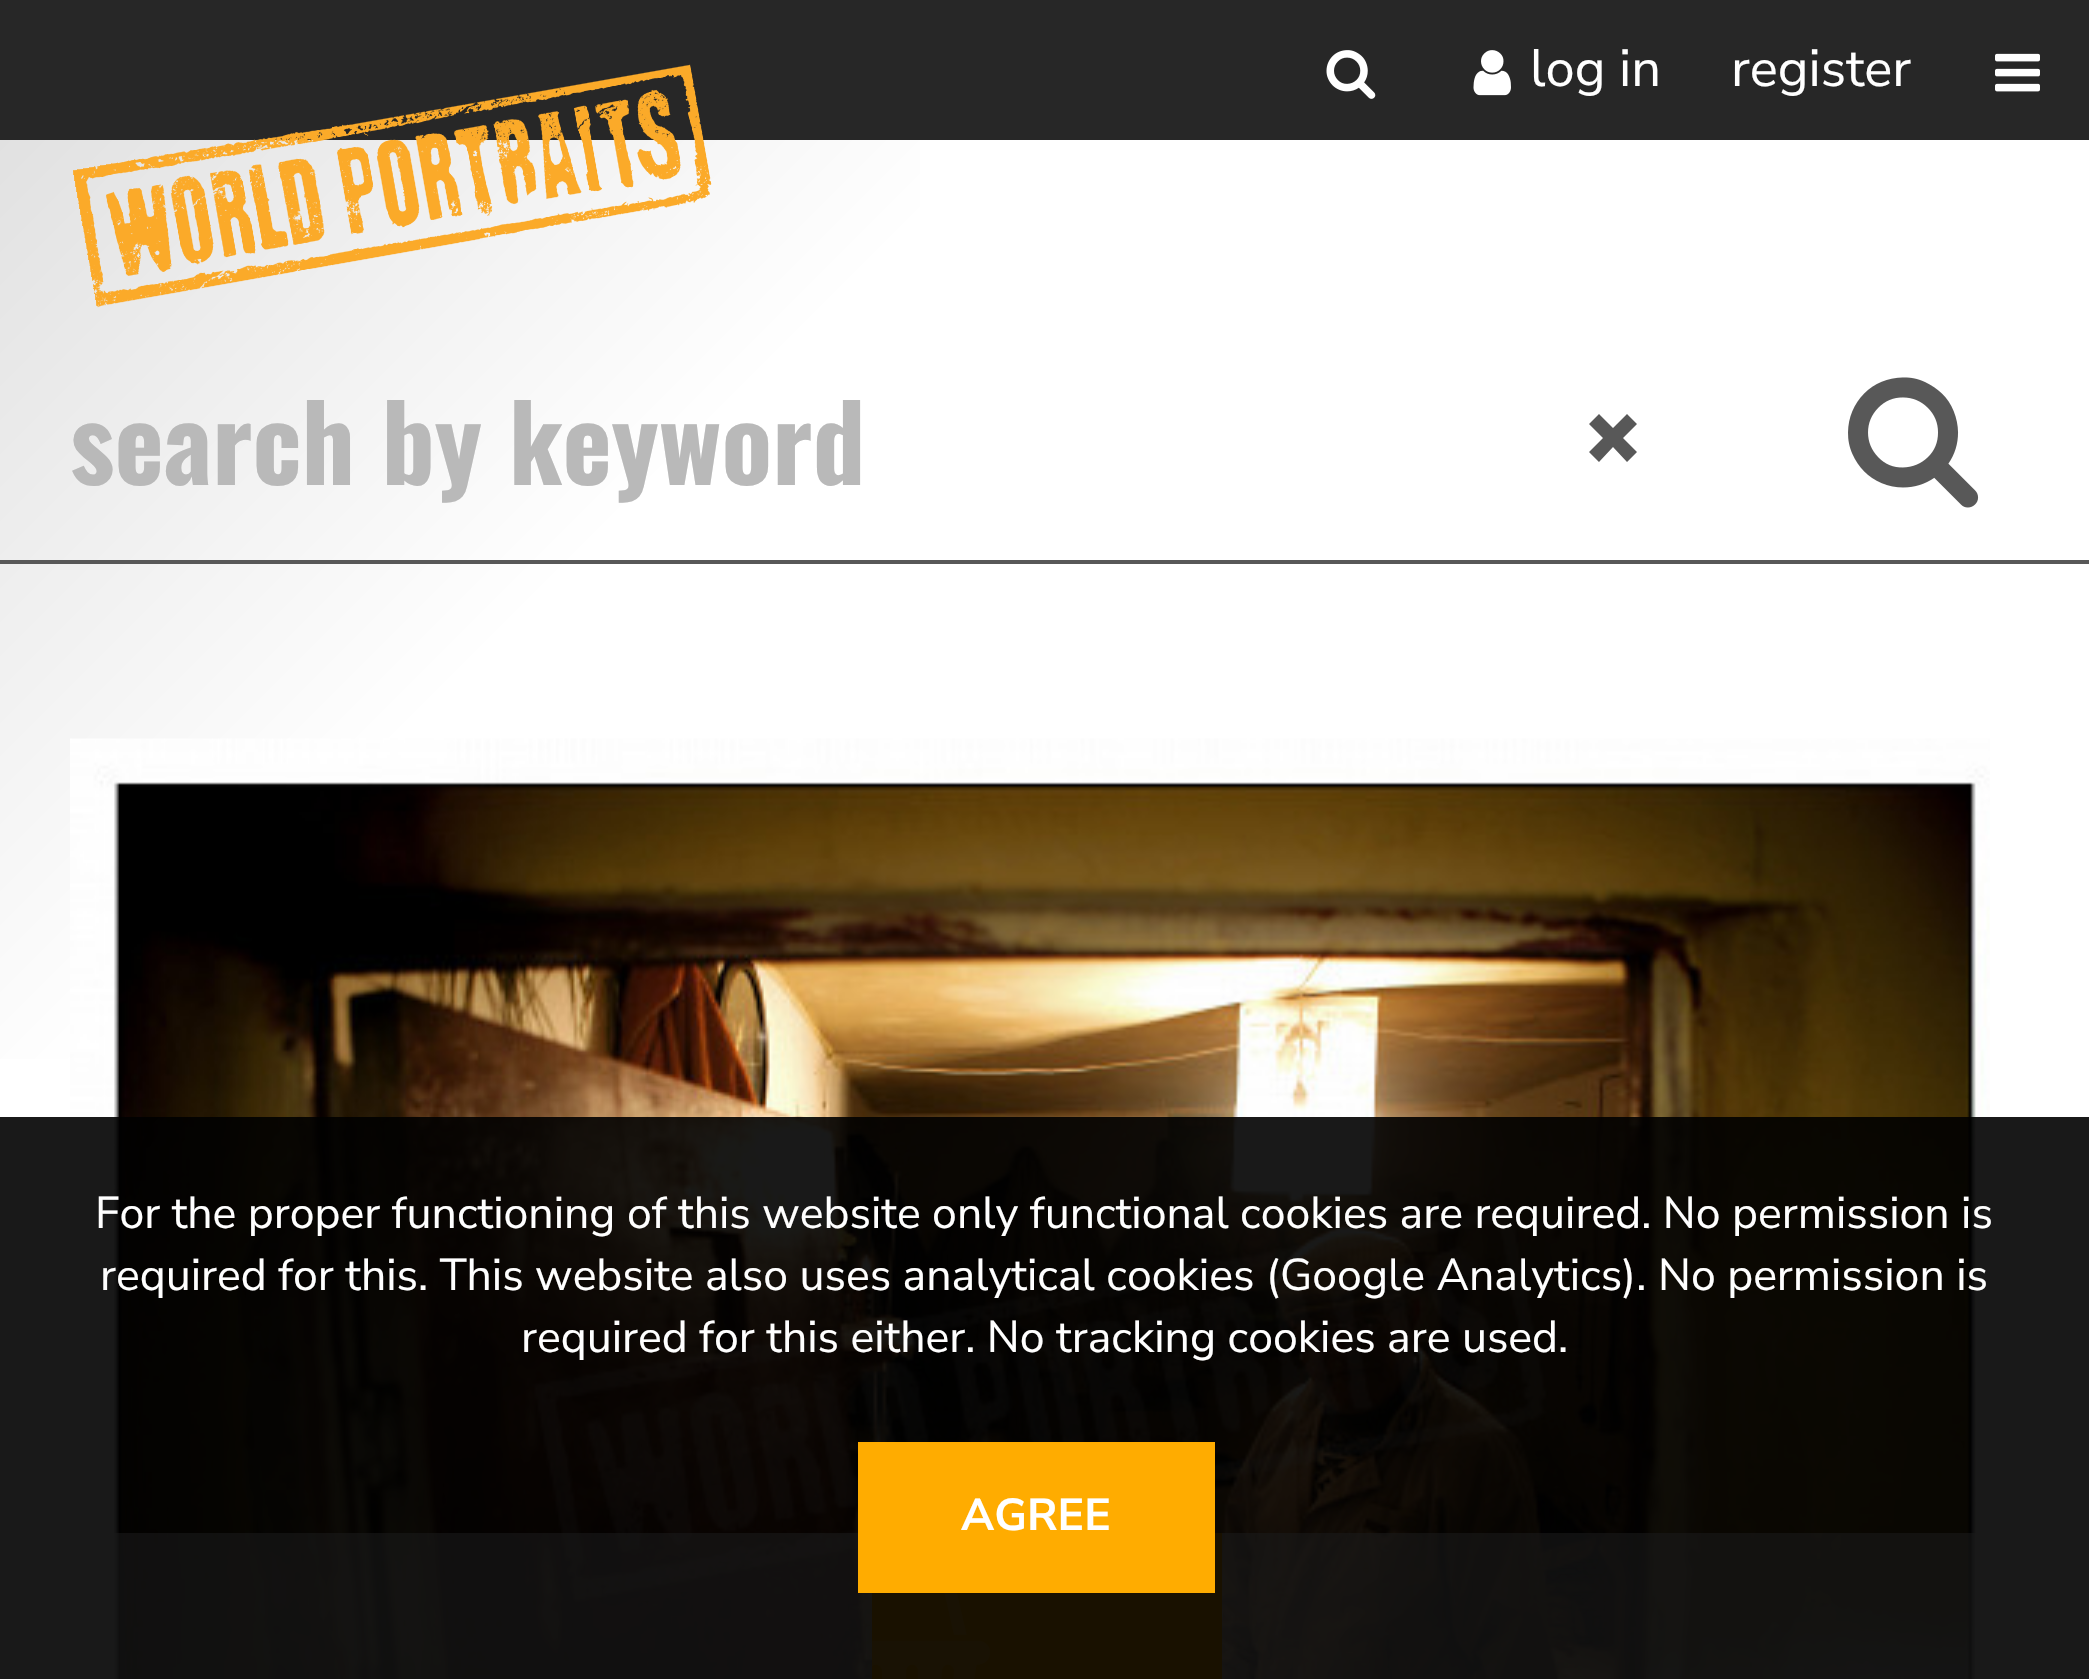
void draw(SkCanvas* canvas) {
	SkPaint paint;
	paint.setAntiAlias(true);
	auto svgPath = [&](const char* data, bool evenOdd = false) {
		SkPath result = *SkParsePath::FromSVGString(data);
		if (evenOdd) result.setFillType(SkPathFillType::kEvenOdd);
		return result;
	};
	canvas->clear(0xffffffff);
	{
		const SkColor colors[] = {0xffdddddd, 0xffffffff};
		const float stops[] = {0, 0.1};
		const SkPoint ends[] = {{-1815, 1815}, {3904, 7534}};
		paint.setShader(SkGradientShader::MakeLinear(ends, colors, stops, 2, SkTileMode::kClamp));
		paint.setAlpha(255);
	}
	canvas->drawRect(SkRect::MakeXYWH(0, 140, 920, 919), paint);
	paint.setShader(nullptr);
	paint.setColor(0xff272727);
	canvas->drawRect(SkRect::MakeXYWH(0, 0, 2089, 140), paint);
	canvas->drawImageRect(SkImages::DeferredFromEncodedData(SkData::MakeFromFileName("img1.png")), SkRect::MakeXYWH(73, 64, 639, 244), SkSamplingOptions());
	canvas->drawImageRect(SkImages::DeferredFromEncodedData(SkData::MakeFromFileName("img2.png")), SkRect::MakeXYWH(1326, 50, 50, 49), SkSamplingOptions());
	canvas->drawImageRect(SkImages::DeferredFromEncodedData(SkData::MakeFromFileName("img3.png")), SkRect::MakeXYWH(1473, 50, 38, 46), SkSamplingOptions());
	SkFont f1(fontMgr->matchFamilyStyle("Nunito Sans", SkFontStyle::Normal()), 52.5);
	f1.setSubpixel(true);
	paint.setColor(0xffffffff);
	canvas->drawString("log in", 1530, 86, f1, paint);
	canvas->drawString("register", 1731, 86, f1, paint);
	canvas->drawImageRect(SkImages::DeferredFromEncodedData(SkData::MakeFromFileName("img4.png")), SkRect::MakeXYWH(1995, 53, 45, 39), SkSamplingOptions());
	canvas->drawImageRect(SkImages::DeferredFromEncodedData(SkData::MakeFromFileName("img7.png")), SkRect::MakeXYWH(70, 738, 1920, 941), SkSamplingOptions());
	paint.setColor(0x99ffffff);
	canvas->drawRect(SkRect::MakeXYWH(114, 1533, 1876, 146), paint);
	paint.setColor(0xffffac00);
	canvas->drawRect(SkRect::MakeXYWH(872, 1533, 350, 146), paint);
	canvas->drawImageRect(SkImages::DeferredFromEncodedData(SkData::MakeFromFileName("img5.png")), SkRect::MakeXYWH(872, 1593, 118, 86), SkSamplingOptions());
	paint.setColor(0xff585858);
	canvas->drawRect(SkRect::MakeXYWH(0, 560, 2089, 4), paint);
	SkFont f2(fontMgr->matchFamilyStyle("Oswald", SkFontStyle::Bold()), 105);
	f2.setSubpixel(true);
	paint.setColor(0xffb9b9b9);
	canvas->drawString("search by keyword", 70, 485, f2, paint);
	paint.setColor(0xff585858);
	canvas->drawPath(svgPath("M1599 414L1613 428L1627 414L1637 424L1623 438L1637 452L1627 462L1613 447L1599 462L1589 452L1603 438L1589 424Z"), paint);
	canvas->drawImageRect(SkImages::DeferredFromEncodedData(SkData::MakeFromFileName("img6.png")), SkRect::MakeXYWH(1848, 377, 131, 131), SkSamplingOptions());
	paint.setColor(0xe6000000);
	canvas->drawRect(SkRect::MakeXYWH(0, 1117, 2089, 562), paint);
	SkFont f3(fontMgr->matchFamilyStyle("Nunito Sans", SkFontStyle::Normal()), 44.6);
	f3.setSubpixel(true);
	paint.setColor(0xffffffff);
	canvas->drawString("For the proper functioning of this website only functional cookies are required. No permission is", 95, 1228, f3, paint);
	canvas->drawString("required for this. This website also uses analytical cookies (Google Analytics). No permission is", 100, 1290, f3, paint);
	canvas->drawString("required for this either. No tracking cookies are used.", 521, 1352, f3, paint);
	paint.setColor(0xffffac00);
	canvas->drawRect(SkRect::MakeXYWH(858, 1442, 357, 151), paint);
	SkFont f4(fontMgr->matchFamilyStyle("Nunito Sans", SkFontStyle::Bold()), 44.6);
	f4.setSubpixel(true);
	paint.setColor(0xffffffff);
	canvas->drawString("AGREE", 961, 1530, f4, paint);
}
